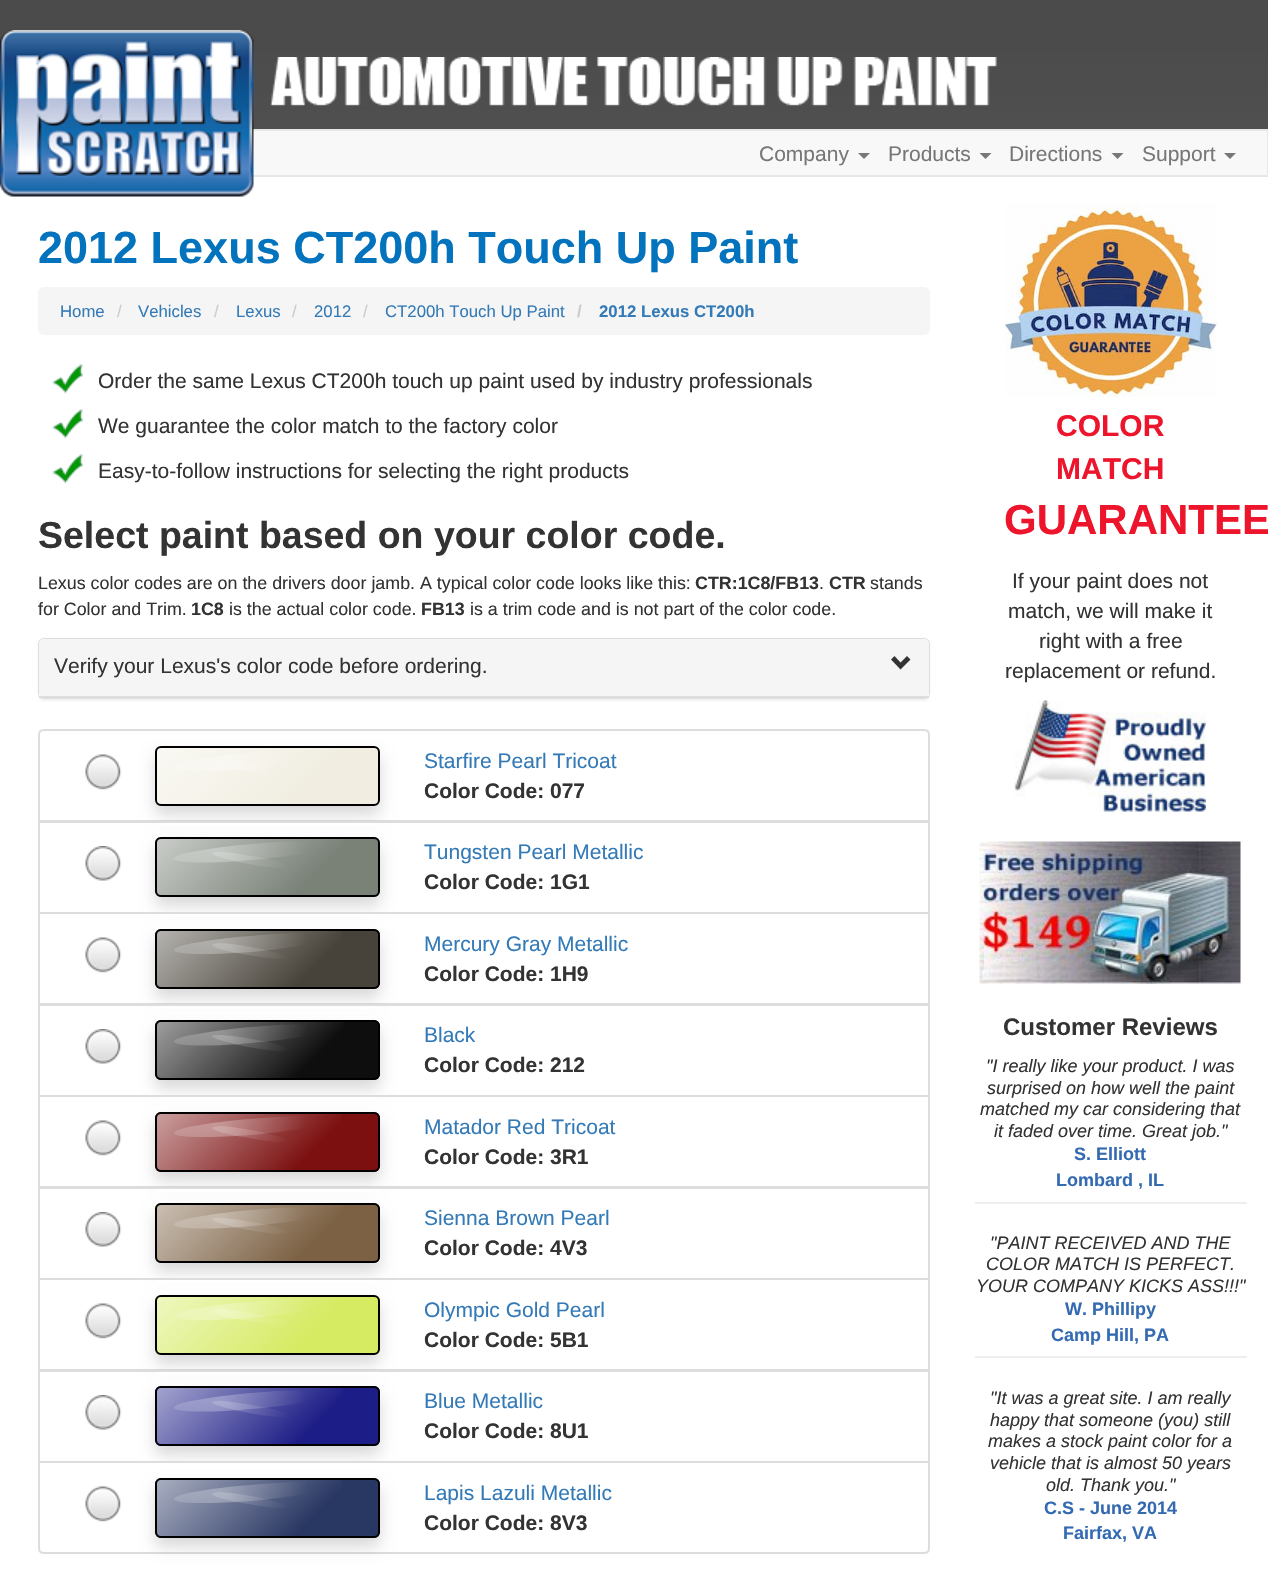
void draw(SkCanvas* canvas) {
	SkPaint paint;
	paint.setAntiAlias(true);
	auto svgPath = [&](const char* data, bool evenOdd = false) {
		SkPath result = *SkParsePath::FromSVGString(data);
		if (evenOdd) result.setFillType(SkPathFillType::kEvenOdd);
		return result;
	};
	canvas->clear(0xffffffff);
	canvas->drawImageRect(SkImages::DeferredFromEncodedData(SkData::MakeFromFileName("img1.png")), SkRect::MakeXYWH(0, 0, 1268, 129), SkSamplingOptions());
	paint.setColor(0xfff8f8f8);
	canvas->drawRect(SkRect::MakeXYWH(253, 131, 1014, 44), paint);
	paint.setStroke(true);
	paint.setStrokeWidth(2);
	paint.setColor(0xffe7e7e7);
	canvas->drawRect(SkRect::MakeXYWH(1, 130, 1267, 46), paint);
	canvas->drawImageRect(SkImages::DeferredFromEncodedData(SkData::MakeFromFileName("img2.png")), SkRect::MakeXYWH(0, 30, 254, 167), SkSamplingOptions());
	canvas->drawImageRect(SkImages::DeferredFromEncodedData(SkData::MakeFromFileName("img3.png")), SkRect::MakeXYWH(270, 57, 727, 49), SkSamplingOptions());
	SkFont f1(fontMgr->matchFamilyStyle("Liberation Sans", SkFontStyle::Normal()), 21);
	f1.setSubpixel(true);
	paint.setStroke(false);
	paint.setColor(0xff777777);
	canvas->drawString("Company", 759, 161, f1, paint);
	canvas->drawPath(svgPath("M858 153H870L864 159Z"), paint);
	canvas->drawString("Products", 888, 161, f1, paint);
	canvas->drawPath(svgPath("M979.5 153H991.5L985.5 159Z"), paint);
	canvas->drawString("Directions", 1009, 161, f1, paint);
	canvas->drawPath(svgPath("M1111.5 153H1123.5L1117.5 159Z"), paint);
	canvas->drawString("Support", 1142, 161, f1, paint);
	canvas->drawPath(svgPath("M1224 153H1236L1230 159Z"), paint);
	SkFont f2(fontMgr->matchFamilyStyle("Liberation Sans", SkFontStyle::Bold()), 45);
	f2.setSubpixel(true);
	paint.setColor(0xff0373bd);
	canvas->drawString("2012 Lexus CT200h Touch Up Paint", 38, 263, f2, paint);
	paint.setColor(0xfff5f5f5);
	canvas->drawRoundRect(SkRect::MakeXYWH(38, 287, 892, 48), 6, 6, paint);
	SkFont f3(fontMgr->matchFamilyStyle("Liberation Sans", SkFontStyle::Normal()), 16.75);
	f3.setSubpixel(true);
	paint.setColor(0xff337ab7);
	canvas->drawString("Home", 60, 317, f3, paint);
	paint.setColor(0xffcccccc);
	canvas->drawString("/", 117, 317, f3, paint);
	paint.setColor(0xff337ab7);
	canvas->drawString("Vehicles", 138, 317, f3, paint);
	paint.setColor(0xffcccccc);
	canvas->drawString("/", 214, 317, f3, paint);
	paint.setColor(0xff337ab7);
	canvas->drawString("Lexus", 236, 317, f3, paint);
	paint.setColor(0xffcccccc);
	canvas->drawString("/", 292, 317, f3, paint);
	paint.setColor(0xff337ab7);
	canvas->drawString("2012", 314, 317, f3, paint);
	paint.setColor(0xffcccccc);
	canvas->drawString("/", 363, 317, f3, paint);
	paint.setColor(0xff337ab7);
	canvas->drawString("CT200h Touch Up Paint", 385, 317, f3, paint);
	SkFont f4(fontMgr->matchFamilyStyle("Liberation Sans", SkFontStyle::Bold()), 16.75);
	f4.setSubpixel(true);
	paint.setColor(0xffcccccc);
	canvas->drawString("/", 577, 317, f4, paint);
	paint.setColor(0xff337ab7);
	canvas->drawString("2012 Lexus CT200h", 599, 317, f4, paint);
	canvas->drawImageRect(SkImages::DeferredFromEncodedData(SkData::MakeFromFileName("img4.png")), SkRect::MakeXYWH(52, 364, 31, 30), SkSamplingOptions());
	paint.setColor(0xff333333);
	canvas->drawString("Order the same Lexus CT200h touch up paint used by industry professionals", 98, 388, f1, paint);
	canvas->drawImageRect(SkImages::DeferredFromEncodedData(SkData::MakeFromFileName("img4.png")), SkRect::MakeXYWH(52, 409, 31, 30), SkSamplingOptions());
	canvas->drawString("We guarantee the color match to the factory color", 98, 433, f1, paint);
	canvas->drawImageRect(SkImages::DeferredFromEncodedData(SkData::MakeFromFileName("img4.png")), SkRect::MakeXYWH(52, 454, 31, 30), SkSamplingOptions());
	canvas->drawString("Easy-to-follow instructions for selecting the right products", 98, 478, f1, paint);
	SkFont f5(fontMgr->matchFamilyStyle("Liberation Sans", SkFontStyle::Bold()), 37.5);
	f5.setSubpixel(true);
	canvas->drawString("Select paint based on your color code.", 38, 548, f5, paint);
	SkFont f6(fontMgr->matchFamilyStyle("Liberation Sans", SkFontStyle::Normal()), 17.85);
	f6.setSubpixel(true);
	canvas->drawString("Lexus color codes are on the drivers door jamb. A typical color code looks like this:", 38, 589, f6, paint);
	SkFont f7(fontMgr->matchFamilyStyle("Liberation Sans", SkFontStyle::Bold()), 17.85);
	f7.setSubpixel(true);
	canvas->drawString("CTR:1C8/FB13", 695, 589, f7, paint);
	canvas->drawString(".", 819, 589, f6, paint);
	canvas->drawString("CTR", 829, 589, f7, paint);
	canvas->drawString("stands", 870, 589, f6, paint);
	canvas->drawString("for Color and Trim.", 38, 615, f6, paint);
	canvas->drawString("1C8", 191, 615, f7, paint);
	canvas->drawString("is the actual color code.", 229, 615, f6, paint);
	canvas->drawString("FB13", 421, 615, f7, paint);
	canvas->drawString("is a trim code and is not part of the color code.", 470, 615, f6, paint);
	paint.setColor(0x0d000000);
	paint.setMaskFilter(SkMaskFilter::MakeBlur(kNormal_SkBlurStyle, 1));
	canvas->drawRoundRect(SkRect::MakeXYWH(38, 639, 892, 62), 6, 6, paint);
	paint.setMaskFilter(nullptr);
	paint.setStroke(true);
	paint.setColor(0xffdddddd);
	canvas->drawRoundRect(SkRect::MakeXYWH(39, 639, 890, 59), 5, 5, paint);
	paint.setStroke(false);
	paint.setColor(0xfff5f5f5);
	canvas->drawPath(svgPath("M44 639H924C927 639 929 641 929 644V698H39V644C39 641 41 639 44 639Z"), paint);
	paint.setColor(0xffdddddd);
	canvas->drawRect(SkRect::MakeXYWH(39, 696, 890, 2), paint);
	paint.setColor(0xff333333);
	canvas->drawString("Verify your Lexus's color code before ordering.", 54, 673, f1, paint);
	canvas->drawPath(svgPath("M910.5 659.5L900.5 669.5L891 659.5L894.5 656L900.5 662.5L907 656Z"), paint);
	paint.setStroke(true);
	paint.setColor(0xffdddddd);
	canvas->drawPath(svgPath("M44 730H924C927 730 929 732 929 735V821H39V735C39 732 41 730 44 730Z"), paint);
	canvas->drawImageRect(SkImages::DeferredFromEncodedData(SkData::MakeFromFileName("img5.png")), SkRect::MakeXYWH(85, 754, 37, 36), SkSamplingOptions());
	paint.setStroke(false);
	paint.setColor(0x26000000);
	paint.setMaskFilter(SkMaskFilter::MakeBlur(kNormal_SkBlurStyle, 7.5));
	canvas->drawRoundRect(SkRect::MakeXYWH(155, 755, 225, 60), 6, 6, paint);
	paint.setMaskFilter(nullptr);
	paint.setColor(0xfff1eee1);
	canvas->drawRoundRect(SkRect::MakeXYWH(155, 746, 225, 60), 6, 6, paint);
	canvas->save();
	canvas->clipPath(svgPath("M161 746H374C377.5 746 380 748.5 380 752V800C380 803.5 377.5 806 374 806H161C157.5 806 155 803.5 155 800V752C155 748.5 157.5 746 161 746Z"), true);
	{
		const SkColor colors[] = {0x99ffffff, 0x00ffffff};
		const float stops[] = {0, 0.7};
		const SkPoint ends[] = {{197, 706}, {337, 845}};
		paint.setShader(SkGradientShader::MakeLinear(ends, colors, stops, 2, SkTileMode::kClamp));
		paint.setAlpha(255);
	}
	canvas->drawRect(SkRect::MakeXYWH(156, 747, 186, 57), paint);
	canvas->restore();
	paint.setStroke(true);
	paint.setShader(nullptr);
	paint.setColor(0xff000000);
	canvas->drawRoundRect(SkRect::MakeXYWH(156, 747, 223, 58), 5, 5, paint);
	paint.setStroke(false);
	{
		const SkColor colors[] = {0x4dffffff, 0x00ffffff};
		const float stops[] = {0, 0.8};
		paint.setShader(SkGradientShader::MakeRadial({220, 760}, 109, colors, stops, 2, SkTileMode::kClamp));
		paint.setAlpha(255);
	}
	canvas->drawPath(svgPath("M251 753C293 749 328 749 329 754C329 758 295 765 252 769C209 772 174 772 174 767C173 763 208 756 251 753Z"), paint);
	{
		const SkColor colors[] = {0x33ffffff, 0x00ffffff};
		const float stops[] = {0, 1};
		paint.setShader(SkGradientShader::MakeRadial({228, 762}, 63, colors, stops, 2, SkTileMode::kClamp));
		paint.setAlpha(255);
	}
	canvas->drawPath(svgPath("M251 764C272 768 289 773 288 775C288 777 271 776 249 772C228 769 211 764 212 762C212 759 230 760 251 764Z"), paint);
	paint.setShader(nullptr);
	paint.setColor(0xff337ab7);
	canvas->drawString("Starfire Pearl Tricoat", 424, 768, f1, paint);
	SkFont f8(fontMgr->matchFamilyStyle("Liberation Sans", SkFontStyle::Bold()), 21);
	f8.setSubpixel(true);
	paint.setColor(0xff333333);
	canvas->drawString("Color Code: 077", 424, 798, f8, paint);
	paint.setColor(0xffffffff);
	canvas->drawRect(SkRect::MakeXYWH(157, 823, 221, 3), paint);
	paint.setStroke(true);
	paint.setColor(0xffdddddd);
	canvas->drawRect(SkRect::MakeXYWH(39, 822, 890, 91), paint);
	canvas->drawImageRect(SkImages::DeferredFromEncodedData(SkData::MakeFromFileName("img6.png")), SkRect::MakeXYWH(85, 846, 37, 35), SkSamplingOptions());
	paint.setStroke(false);
	paint.setColor(0x26000000);
	paint.setMaskFilter(SkMaskFilter::MakeBlur(kNormal_SkBlurStyle, 7.5));
	canvas->drawRoundRect(SkRect::MakeXYWH(155, 846, 225, 60), 6, 6, paint);
	paint.setMaskFilter(nullptr);
	paint.setColor(0xff7a8278);
	canvas->drawRoundRect(SkRect::MakeXYWH(155, 837, 225, 60), 6, 6, paint);
	canvas->save();
	canvas->clipPath(svgPath("M161 837H374C377.5 837 380 839.5 380 843V891C380 894.5 377.5 897 374 897H161C157.5 897 155 894.5 155 891V843C155 839.5 157.5 837 161 837Z"), true);
	{
		const SkColor colors[] = {0x99ffffff, 0x00ffffff};
		const float stops[] = {0, 0.7};
		const SkPoint ends[] = {{197, 797}, {337, 937}};
		paint.setShader(SkGradientShader::MakeLinear(ends, colors, stops, 2, SkTileMode::kClamp));
		paint.setAlpha(255);
	}
	canvas->drawRect(SkRect::MakeXYWH(156, 839, 187, 57), paint);
	canvas->restore();
	paint.setStroke(true);
	paint.setShader(nullptr);
	paint.setColor(0xff000000);
	canvas->drawRoundRect(SkRect::MakeXYWH(156, 838, 223, 58), 5, 5, paint);
	paint.setStroke(false);
	{
		const SkColor colors[] = {0x4dffffff, 0x00ffffff};
		const float stops[] = {0, 0.8};
		paint.setShader(SkGradientShader::MakeRadial({220, 852}, 109, colors, stops, 2, SkTileMode::kClamp));
		paint.setAlpha(255);
	}
	canvas->drawPath(svgPath("M251 844C293 840 328 841 329 845C329 850 295 856 252 860C209 864 174 863 174 859C173 854 208 848 251 844Z"), paint);
	{
		const SkColor colors[] = {0x33ffffff, 0x00ffffff};
		const float stops[] = {0, 1};
		paint.setShader(SkGradientShader::MakeRadial({228, 853}, 63, colors, stops, 2, SkTileMode::kClamp));
		paint.setAlpha(255);
	}
	canvas->drawPath(svgPath("M251 856C272 859 289 864 288 867C288 869 271 868 249 864C228 860 211 855 212 853C212 851 230 852 251 856Z"), paint);
	paint.setShader(nullptr);
	paint.setColor(0xff337ab7);
	canvas->drawString("Tungsten Pearl Metallic", 424, 859, f1, paint);
	paint.setColor(0xff333333);
	canvas->drawString("Color Code: 1G1", 424, 889, f8, paint);
	paint.setColor(0xffffffff);
	canvas->drawRect(SkRect::MakeXYWH(157, 914, 221, 3), paint);
	paint.setStroke(true);
	paint.setColor(0xffdddddd);
	canvas->drawRect(SkRect::MakeXYWH(39, 913, 890, 91), paint);
	canvas->drawImageRect(SkImages::DeferredFromEncodedData(SkData::MakeFromFileName("img5.png")), SkRect::MakeXYWH(85, 937, 37, 36), SkSamplingOptions());
	paint.setStroke(false);
	paint.setColor(0x26000000);
	paint.setMaskFilter(SkMaskFilter::MakeBlur(kNormal_SkBlurStyle, 7.5));
	canvas->drawRoundRect(SkRect::MakeXYWH(155, 938, 225, 60), 6, 6, paint);
	paint.setMaskFilter(nullptr);
	paint.setColor(0xff48433a);
	canvas->drawRoundRect(SkRect::MakeXYWH(155, 929, 225, 60), 6, 6, paint);
	canvas->save();
	canvas->clipPath(svgPath("M161 929H374C377.5 929 380 931.5 380 935V983C380 986.5 377.5 989 374 989H161C157.5 989 155 986.5 155 983V935C155 931.5 157.5 929 161 929Z"), true);
	{
		const SkColor colors[] = {0x99ffffff, 0x00ffffff};
		const float stops[] = {0, 0.7};
		const SkPoint ends[] = {{197, 889}, {337, 1028}};
		paint.setShader(SkGradientShader::MakeLinear(ends, colors, stops, 2, SkTileMode::kClamp));
		paint.setAlpha(255);
	}
	canvas->drawRect(SkRect::MakeXYWH(156, 930, 186, 57), paint);
	canvas->restore();
	paint.setStroke(true);
	paint.setShader(nullptr);
	paint.setColor(0xff000000);
	canvas->drawRoundRect(SkRect::MakeXYWH(156, 930, 223, 58), 5, 5, paint);
	paint.setStroke(false);
	{
		const SkColor colors[] = {0x4dffffff, 0x00ffffff};
		const float stops[] = {0, 0.8};
		paint.setShader(SkGradientShader::MakeRadial({220, 943}, 109, colors, stops, 2, SkTileMode::kClamp));
		paint.setAlpha(255);
	}
	canvas->drawPath(svgPath("M251 936C293 932 328 932 329 937C329 941 295 948 252 952C209 955 174 955 174 950C173 946 208 939 251 936Z"), paint);
	{
		const SkColor colors[] = {0x33ffffff, 0x00ffffff};
		const float stops[] = {0, 1};
		paint.setShader(SkGradientShader::MakeRadial({228, 945}, 63, colors, stops, 2, SkTileMode::kClamp));
		paint.setAlpha(255);
	}
	canvas->drawPath(svgPath("M251 947C272 951 289 956 288 958C288 960 271 959 249 955C228 952 211 947 212 945C212 942 230 943 251 947Z"), paint);
	paint.setShader(nullptr);
	paint.setColor(0xff337ab7);
	canvas->drawString("Mercury Gray Metallic", 424, 951, f1, paint);
	paint.setColor(0xff333333);
	canvas->drawString("Color Code: 1H9", 424, 981, f8, paint);
	paint.setColor(0xffffffff);
	canvas->drawRect(SkRect::MakeXYWH(157, 1006, 221, 3), paint);
	paint.setStroke(true);
	paint.setColor(0xffdddddd);
	canvas->drawRect(SkRect::MakeXYWH(39, 1005, 890, 91), paint);
	canvas->drawImageRect(SkImages::DeferredFromEncodedData(SkData::MakeFromFileName("img6.png")), SkRect::MakeXYWH(85, 1029, 37, 35), SkSamplingOptions());
	paint.setStroke(false);
	paint.setColor(0x26000000);
	paint.setMaskFilter(SkMaskFilter::MakeBlur(kNormal_SkBlurStyle, 7.5));
	canvas->drawRoundRect(SkRect::MakeXYWH(155, 1029, 225, 60), 6, 6, paint);
	paint.setMaskFilter(nullptr);
	paint.setColor(0xff0e0e0e);
	canvas->drawRoundRect(SkRect::MakeXYWH(155, 1020, 225, 60), 6, 6, paint);
	canvas->save();
	canvas->clipPath(svgPath("M161 1020H374C377.5 1020 380 1022.5 380 1026V1074C380 1077.5 377.5 1080 374 1080H161C157.5 1080 155 1077.5 155 1074V1026C155 1022.5 157.5 1020 161 1020Z"), true);
	{
		const SkColor colors[] = {0x99ffffff, 0x00ffffff};
		const float stops[] = {0, 0.7};
		const SkPoint ends[] = {{197, 980}, {337, 1120}};
		paint.setShader(SkGradientShader::MakeLinear(ends, colors, stops, 2, SkTileMode::kClamp));
		paint.setAlpha(255);
	}
	canvas->drawRect(SkRect::MakeXYWH(156, 1022, 187, 57), paint);
	canvas->restore();
	paint.setStroke(true);
	paint.setShader(nullptr);
	paint.setColor(0xff000000);
	canvas->drawRoundRect(SkRect::MakeXYWH(156, 1021, 223, 58), 5, 5, paint);
	paint.setStroke(false);
	{
		const SkColor colors[] = {0x4dffffff, 0x00ffffff};
		const float stops[] = {0, 0.8};
		paint.setShader(SkGradientShader::MakeRadial({220, 1035}, 109, colors, stops, 2, SkTileMode::kClamp));
		paint.setAlpha(255);
	}
	canvas->drawPath(svgPath("M251 1027C293 1023 328 1024 329 1028C329 1033 295 1039 252 1043C209 1047 174 1046 174 1042C173 1037 208 1031 251 1027Z"), paint);
	{
		const SkColor colors[] = {0x33ffffff, 0x00ffffff};
		const float stops[] = {0, 1};
		paint.setShader(SkGradientShader::MakeRadial({228, 1036}, 63, colors, stops, 2, SkTileMode::kClamp));
		paint.setAlpha(255);
	}
	canvas->drawPath(svgPath("M251 1039C272 1042 289 1047 288 1050C288 1052 271 1051 249 1047C228 1043 211 1038 212 1036C212 1034 230 1035 251 1039Z"), paint);
	paint.setShader(nullptr);
	paint.setColor(0xff337ab7);
	canvas->drawString("Black", 424, 1042, f1, paint);
	paint.setColor(0xff333333);
	canvas->drawString("Color Code: 212", 424, 1072, f8, paint);
	paint.setColor(0xffffffff);
	canvas->drawRect(SkRect::MakeXYWH(157, 1097, 221, 3), paint);
	paint.setStroke(true);
	paint.setColor(0xffdddddd);
	canvas->drawRect(SkRect::MakeXYWH(39, 1096, 890, 91), paint);
	canvas->drawImageRect(SkImages::DeferredFromEncodedData(SkData::MakeFromFileName("img5.png")), SkRect::MakeXYWH(85, 1120, 37, 36), SkSamplingOptions());
	paint.setStroke(false);
	paint.setColor(0x26000000);
	paint.setMaskFilter(SkMaskFilter::MakeBlur(kNormal_SkBlurStyle, 7.5));
	canvas->drawRoundRect(SkRect::MakeXYWH(155, 1121, 225, 60), 6, 6, paint);
	paint.setMaskFilter(nullptr);
	paint.setColor(0xff7c1010);
	canvas->drawRoundRect(SkRect::MakeXYWH(155, 1112, 225, 60), 6, 6, paint);
	canvas->save();
	canvas->clipPath(svgPath("M161 1112H374C377.5 1112 380 1114.5 380 1118V1166C380 1169.5 377.5 1172 374 1172H161C157.5 1172 155 1169.5 155 1166V1118C155 1114.5 157.5 1112 161 1112Z"), true);
	{
		const SkColor colors[] = {0x99ffffff, 0x00ffffff};
		const float stops[] = {0, 0.7};
		const SkPoint ends[] = {{197, 1072}, {337, 1211}};
		paint.setShader(SkGradientShader::MakeLinear(ends, colors, stops, 2, SkTileMode::kClamp));
		paint.setAlpha(255);
	}
	canvas->drawRect(SkRect::MakeXYWH(156, 1113, 186, 57), paint);
	{
		const SkColor colors[] = {0xfff2eeee, 0xffdfd4d4};
		const float stops[] = {0, 0.7};
		const SkPoint ends[] = {{419, 1129}, {559, 1268}};
		paint.setShader(SkGradientShader::MakeLinear(ends, colors, stops, 2, SkTileMode::kClamp));
		paint.setAlpha(255);
	}
	canvas->drawRect(SkRect::MakeXYWH(378, 1170, 2, 1), paint);
	canvas->restore();
	paint.setStroke(true);
	paint.setShader(nullptr);
	paint.setColor(0xff000000);
	canvas->drawRoundRect(SkRect::MakeXYWH(156, 1113, 223, 58), 5, 5, paint);
	paint.setStroke(false);
	{
		const SkColor colors[] = {0x4dffffff, 0x00ffffff};
		const float stops[] = {0, 0.8};
		paint.setShader(SkGradientShader::MakeRadial({220, 1126}, 109, colors, stops, 2, SkTileMode::kClamp));
		paint.setAlpha(255);
	}
	canvas->drawPath(svgPath("M251 1119C293 1115 328 1115 329 1120C329 1124 295 1131 252 1135C209 1138 174 1138 174 1133C173 1129 208 1122 251 1119Z"), paint);
	{
		const SkColor colors[] = {0x33ffffff, 0x00ffffff};
		const float stops[] = {0, 1};
		paint.setShader(SkGradientShader::MakeRadial({228, 1128}, 63, colors, stops, 2, SkTileMode::kClamp));
		paint.setAlpha(255);
	}
	canvas->drawPath(svgPath("M251 1130C272 1134 289 1139 288 1141C288 1143 271 1142 249 1138C228 1135 211 1130 212 1128C212 1125 230 1126 251 1130Z"), paint);
	paint.setShader(nullptr);
	paint.setColor(0xff337ab7);
	canvas->drawString("Matador Red Tricoat", 424, 1134, f1, paint);
	paint.setColor(0xff333333);
	canvas->drawString("Color Code: 3R1", 424, 1164, f8, paint);
	paint.setColor(0xffffffff);
	canvas->drawRect(SkRect::MakeXYWH(157, 1189, 221, 3), paint);
	paint.setStroke(true);
	paint.setColor(0xffdddddd);
	canvas->drawRect(SkRect::MakeXYWH(39, 1188, 890, 91), paint);
	canvas->drawImageRect(SkImages::DeferredFromEncodedData(SkData::MakeFromFileName("img6.png")), SkRect::MakeXYWH(85, 1212, 37, 35), SkSamplingOptions());
	paint.setStroke(false);
	paint.setColor(0x26000000);
	paint.setMaskFilter(SkMaskFilter::MakeBlur(kNormal_SkBlurStyle, 7.5));
	canvas->drawRoundRect(SkRect::MakeXYWH(155, 1212, 225, 60), 6, 6, paint);
	paint.setMaskFilter(nullptr);
	paint.setColor(0xff7c6144);
	canvas->drawRoundRect(SkRect::MakeXYWH(155, 1203, 225, 60), 6, 6, paint);
	canvas->save();
	canvas->clipPath(svgPath("M161 1203H374C377.5 1203 380 1205.5 380 1209V1257C380 1260.5 377.5 1263 374 1263H161C157.5 1263 155 1260.5 155 1257V1209C155 1205.5 157.5 1203 161 1203Z"), true);
	{
		const SkColor colors[] = {0x99ffffff, 0x00ffffff};
		const float stops[] = {0, 0.7};
		const SkPoint ends[] = {{197, 1163}, {337, 1303}};
		paint.setShader(SkGradientShader::MakeLinear(ends, colors, stops, 2, SkTileMode::kClamp));
		paint.setAlpha(255);
	}
	canvas->drawRect(SkRect::MakeXYWH(156, 1205, 187, 57), paint);
	canvas->restore();
	paint.setStroke(true);
	paint.setShader(nullptr);
	paint.setColor(0xff000000);
	canvas->drawRoundRect(SkRect::MakeXYWH(156, 1204, 223, 58), 5, 5, paint);
	paint.setStroke(false);
	{
		const SkColor colors[] = {0x4dffffff, 0x00ffffff};
		const float stops[] = {0, 0.8};
		paint.setShader(SkGradientShader::MakeRadial({220, 1218}, 109, colors, stops, 2, SkTileMode::kClamp));
		paint.setAlpha(255);
	}
	canvas->drawPath(svgPath("M251 1210C293 1206 328 1207 329 1211C329 1216 295 1222 252 1226C209 1230 174 1229 174 1225C173 1220 208 1214 251 1210Z"), paint);
	{
		const SkColor colors[] = {0x33ffffff, 0x00ffffff};
		const float stops[] = {0, 1};
		paint.setShader(SkGradientShader::MakeRadial({228, 1219}, 63, colors, stops, 2, SkTileMode::kClamp));
		paint.setAlpha(255);
	}
	canvas->drawPath(svgPath("M251 1222C272 1225 289 1230 288 1233C288 1235 271 1234 249 1230C228 1226 211 1221 212 1219C212 1217 230 1218 251 1222Z"), paint);
	paint.setShader(nullptr);
	paint.setColor(0xff337ab7);
	canvas->drawString("Sienna Brown Pearl", 424, 1225, f1, paint);
	paint.setColor(0xff333333);
	canvas->drawString("Color Code: 4V3", 424, 1255, f8, paint);
	paint.setColor(0xffffffff);
	canvas->drawRect(SkRect::MakeXYWH(157, 1280, 221, 3), paint);
	paint.setStroke(true);
	paint.setColor(0xffdddddd);
	canvas->drawRect(SkRect::MakeXYWH(39, 1279, 890, 91), paint);
	canvas->drawImageRect(SkImages::DeferredFromEncodedData(SkData::MakeFromFileName("img5.png")), SkRect::MakeXYWH(85, 1303, 37, 36), SkSamplingOptions());
	paint.setStroke(false);
	paint.setColor(0x26000000);
	paint.setMaskFilter(SkMaskFilter::MakeBlur(kNormal_SkBlurStyle, 7.5));
	canvas->drawRoundRect(SkRect::MakeXYWH(155, 1304, 225, 60), 6, 6, paint);
	paint.setMaskFilter(nullptr);
	paint.setColor(0xffd6eb61);
	canvas->drawRoundRect(SkRect::MakeXYWH(155, 1295, 225, 60), 6, 6, paint);
	canvas->save();
	canvas->clipPath(svgPath("M161 1295H374C377.5 1295 380 1297.5 380 1301V1349C380 1352.5 377.5 1355 374 1355H161C157.5 1355 155 1352.5 155 1349V1301C155 1297.5 157.5 1295 161 1295Z"), true);
	{
		const SkColor colors[] = {0x99ffffff, 0x00ffffff};
		const float stops[] = {0, 0.7};
		const SkPoint ends[] = {{197, 1255}, {337, 1394}};
		paint.setShader(SkGradientShader::MakeLinear(ends, colors, stops, 2, SkTileMode::kClamp));
		paint.setAlpha(255);
	}
	canvas->drawRect(SkRect::MakeXYWH(156, 1296, 186, 57), paint);
	canvas->restore();
	paint.setStroke(true);
	paint.setShader(nullptr);
	paint.setColor(0xff000000);
	canvas->drawRoundRect(SkRect::MakeXYWH(156, 1296, 223, 58), 5, 5, paint);
	paint.setStroke(false);
	{
		const SkColor colors[] = {0x4dffffff, 0x00ffffff};
		const float stops[] = {0, 0.8};
		paint.setShader(SkGradientShader::MakeRadial({220, 1309}, 109, colors, stops, 2, SkTileMode::kClamp));
		paint.setAlpha(255);
	}
	canvas->drawPath(svgPath("M251 1302C293 1298 328 1298 329 1303C329 1307 295 1314 252 1318C209 1321 174 1321 174 1316C173 1312 208 1305 251 1302Z"), paint);
	{
		const SkColor colors[] = {0x33ffffff, 0x00ffffff};
		const float stops[] = {0, 1};
		paint.setShader(SkGradientShader::MakeRadial({228, 1311}, 63, colors, stops, 2, SkTileMode::kClamp));
		paint.setAlpha(255);
	}
	canvas->drawPath(svgPath("M251 1313C272 1317 289 1322 288 1324C288 1326 271 1325 249 1321C228 1318 211 1313 212 1311C212 1308 230 1309 251 1313Z"), paint);
	paint.setShader(nullptr);
	paint.setColor(0xff337ab7);
	canvas->drawString("Olympic Gold Pearl", 424, 1317, f1, paint);
	paint.setColor(0xff333333);
	canvas->drawString("Color Code: 5B1", 424, 1347, f8, paint);
	paint.setColor(0xffffffff);
	canvas->drawRect(SkRect::MakeXYWH(157, 1372, 221, 3), paint);
	paint.setStroke(true);
	paint.setColor(0xffdddddd);
	canvas->drawRect(SkRect::MakeXYWH(39, 1371, 890, 91), paint);
	canvas->drawImageRect(SkImages::DeferredFromEncodedData(SkData::MakeFromFileName("img6.png")), SkRect::MakeXYWH(85, 1395, 37, 35), SkSamplingOptions());
	paint.setStroke(false);
	paint.setColor(0x26000000);
	paint.setMaskFilter(SkMaskFilter::MakeBlur(kNormal_SkBlurStyle, 7.5));
	canvas->drawRoundRect(SkRect::MakeXYWH(155, 1395, 225, 60), 6, 6, paint);
	paint.setMaskFilter(nullptr);
	paint.setColor(0xff1d1d87);
	canvas->drawRoundRect(SkRect::MakeXYWH(155, 1386, 225, 60), 6, 6, paint);
	canvas->save();
	canvas->clipPath(svgPath("M161 1386H374C377.5 1386 380 1388.5 380 1392V1440C380 1443.5 377.5 1446 374 1446H161C157.5 1446 155 1443.5 155 1440V1392C155 1388.5 157.5 1386 161 1386Z"), true);
	{
		const SkColor colors[] = {0x99ffffff, 0x00ffffff};
		const float stops[] = {0, 0.7};
		const SkPoint ends[] = {{197, 1346}, {337, 1486}};
		paint.setShader(SkGradientShader::MakeLinear(ends, colors, stops, 2, SkTileMode::kClamp));
		paint.setAlpha(255);
	}
	canvas->drawRect(SkRect::MakeXYWH(156, 1388, 187, 57), paint);
	canvas->restore();
	paint.setStroke(true);
	paint.setShader(nullptr);
	paint.setColor(0xff000000);
	canvas->drawRoundRect(SkRect::MakeXYWH(156, 1387, 223, 58), 5, 5, paint);
	paint.setStroke(false);
	{
		const SkColor colors[] = {0x4dffffff, 0x00ffffff};
		const float stops[] = {0, 0.8};
		paint.setShader(SkGradientShader::MakeRadial({220, 1401}, 109, colors, stops, 2, SkTileMode::kClamp));
		paint.setAlpha(255);
	}
	canvas->drawPath(svgPath("M251 1393C293 1389 328 1390 329 1394C329 1399 295 1405 252 1409C209 1413 174 1412 174 1408C173 1403 208 1397 251 1393Z"), paint);
	{
		const SkColor colors[] = {0x33ffffff, 0x00ffffff};
		const float stops[] = {0, 1};
		paint.setShader(SkGradientShader::MakeRadial({228, 1402}, 63, colors, stops, 2, SkTileMode::kClamp));
		paint.setAlpha(255);
	}
	canvas->drawPath(svgPath("M251 1405C272 1408 289 1413 288 1416C288 1418 271 1417 249 1413C228 1409 211 1404 212 1402C212 1400 230 1401 251 1405Z"), paint);
	paint.setShader(nullptr);
	paint.setColor(0xff337ab7);
	canvas->drawString("Blue Metallic", 424, 1408, f1, paint);
	paint.setColor(0xff333333);
	canvas->drawString("Color Code: 8U1", 424, 1438, f8, paint);
	paint.setColor(0xffffffff);
	canvas->drawPath(svgPath("M39 1462H929V1548C929 1551 927 1553 924 1553H44C41 1553 39 1551 39 1548Z"), paint);
	paint.setStroke(true);
	paint.setColor(0xffdddddd);
	canvas->drawPath(svgPath("M39 1462H929V1548C929 1551 927 1553 924 1553H44C41 1553 39 1551 39 1548Z"), paint);
	canvas->drawImageRect(SkImages::DeferredFromEncodedData(SkData::MakeFromFileName("img5.png")), SkRect::MakeXYWH(85, 1486, 37, 36), SkSamplingOptions());
	paint.setStroke(false);
	paint.setColor(0x26000000);
	paint.setMaskFilter(SkMaskFilter::MakeBlur(kNormal_SkBlurStyle, 7.5));
	canvas->drawRoundRect(SkRect::MakeXYWH(155, 1487, 225, 60), 6, 6, paint);
	paint.setMaskFilter(nullptr);
	paint.setColor(0xff293763);
	canvas->drawRoundRect(SkRect::MakeXYWH(155, 1478, 225, 60), 6, 6, paint);
	canvas->save();
	canvas->clipPath(svgPath("M161 1478H374C377.5 1478 380 1480.5 380 1484V1532C380 1535.5 377.5 1538 374 1538H161C157.5 1538 155 1535.5 155 1532V1484C155 1480.5 157.5 1478 161 1478Z"), true);
	{
		const SkColor colors[] = {0x99ffffff, 0x00ffffff};
		const float stops[] = {0, 0.7};
		const SkPoint ends[] = {{197, 1438}, {337, 1577}};
		paint.setShader(SkGradientShader::MakeLinear(ends, colors, stops, 2, SkTileMode::kClamp));
		paint.setAlpha(255);
	}
	canvas->drawRect(SkRect::MakeXYWH(156, 1479, 186, 57), paint);
	canvas->restore();
	paint.setStroke(true);
	paint.setShader(nullptr);
	paint.setColor(0xff000000);
	canvas->drawRoundRect(SkRect::MakeXYWH(156, 1479, 223, 58), 5, 5, paint);
	paint.setStroke(false);
	{
		const SkColor colors[] = {0x4dffffff, 0x00ffffff};
		const float stops[] = {0, 0.8};
		paint.setShader(SkGradientShader::MakeRadial({220, 1492}, 109, colors, stops, 2, SkTileMode::kClamp));
		paint.setAlpha(255);
	}
	canvas->drawPath(svgPath("M251 1485C293 1481 328 1481 329 1486C329 1490 295 1497 252 1501C209 1504 174 1504 174 1499C173 1495 208 1488 251 1485Z"), paint);
	{
		const SkColor colors[] = {0x33ffffff, 0x00ffffff};
		const float stops[] = {0, 1};
		paint.setShader(SkGradientShader::MakeRadial({228, 1494}, 63, colors, stops, 2, SkTileMode::kClamp));
		paint.setAlpha(255);
	}
	canvas->drawPath(svgPath("M251 1496C272 1500 289 1505 288 1507C288 1509 271 1508 249 1504C228 1501 211 1496 212 1494C212 1491 230 1492 251 1496Z"), paint);
	paint.setShader(nullptr);
	paint.setColor(0xff337ab7);
	canvas->drawString("Lapis Lazuli Metallic", 424, 1500, f1, paint);
	paint.setColor(0xff333333);
	canvas->drawString("Color Code: 8V3", 424, 1530, f8, paint);
	canvas->drawImageRect(SkImages::DeferredFromEncodedData(SkData::MakeFromFileName("img7.png")), SkRect::MakeXYWH(1005, 203, 212, 194), SkSamplingOptions());
	SkFont f9(fontMgr->matchFamilyStyle("Liberation Sans", SkFontStyle::Bold()), 30);
	f9.setSubpixel(true);
	paint.setColor(0xffed152c);
	canvas->drawString("COLOR", 1056, 436, f9, paint);
	canvas->drawString("MATCH", 1056, 479, f9, paint);
	SkFont f10(fontMgr->matchFamilyStyle("Liberation Sans", SkFontStyle::Bold()), 42);
	f10.setSubpixel(true);
	canvas->drawString("GUARANTEE", 1004, 534, f10, paint);
	paint.setColor(0xff333333);
	canvas->drawString("If your paint does not", 1012, 588, f1, paint);
	canvas->drawString("match, we will make it", 1008, 618, f1, paint);
	canvas->drawString("right with a free", 1039, 648, f1, paint);
	canvas->drawString("replacement or refund.", 1005, 678, f1, paint);
	canvas->drawImageRect(SkImages::DeferredFromEncodedData(SkData::MakeFromFileName("img8.png")), SkRect::MakeXYWH(1014, 700, 192, 112), SkSamplingOptions());
	canvas->drawImageRect(SkImages::DeferredFromEncodedData(SkData::MakeFromFileName("img9.png")), SkRect::MakeXYWH(979, 841, 262, 143), SkSamplingOptions());
	SkFont f11(fontMgr->matchFamilyStyle("Liberation Sans", SkFontStyle::Bold()), 24);
	f11.setSubpixel(true);
	canvas->drawString("Customer Reviews", 1003, 1035, f11, paint);
	SkFont f12(fontMgr->matchFamilyStyle("Liberation Sans", SkFontStyle::Italic()), 18);
	f12.setSubpixel(true);
	canvas->drawString("\"I really like your product. I was", 986, 1072, f12, paint);
	canvas->drawString("surprised on how well the paint", 987, 1094, f12, paint);
	canvas->drawString("matched my car considering that", 980, 1115, f12, paint);
	canvas->drawString("it faded over time. Great job.\"", 994, 1137, f12, paint);
	SkFont f13(fontMgr->matchFamilyStyle("Liberation Sans", SkFontStyle::Bold()), 18);
	f13.setSubpixel(true);
	paint.setColor(0xff346ab1);
	canvas->drawString("S. Elliott", 1074, 1160, f13, paint);
	canvas->drawString("Lombard , IL", 1056, 1186, f13, paint);
	paint.setColor(0xffeeeeee);
	canvas->drawRect(SkRect::MakeXYWH(975, 1202, 272, 2), paint);
	paint.setColor(0xff333333);
	canvas->drawString("\"PAINT RECEIVED AND THE", 990, 1249, f12, paint);
	canvas->drawString("COLOR MATCH IS PERFECT.", 986, 1270, f12, paint);
	canvas->drawString("YOUR COMPANY KICKS ASS!!!\"", 976, 1292, f12, paint);
	paint.setColor(0xff346ab1);
	canvas->drawString("W. Phillipy", 1065, 1315, f13, paint);
	canvas->drawString("Camp Hill, PA", 1051, 1341, f13, paint);
	paint.setColor(0xffeeeeee);
	canvas->drawRect(SkRect::MakeXYWH(975, 1356, 272, 2), paint);
	paint.setColor(0xff333333);
	canvas->drawString("\"It was a great site. I am really", 990, 1404, f12, paint);
	canvas->drawString("happy that someone (you) still", 990, 1426, f12, paint);
	canvas->drawString("makes a stock paint color for a", 988, 1447, f12, paint);
	canvas->drawString("vehicle that is almost 50 years", 990, 1469, f12, paint);
	canvas->drawString("old. Thank you.\"", 1046, 1491, f12, paint);
	paint.setColor(0xff346ab1);
	canvas->drawString("C.S - June 2014", 1044, 1514, f13, paint);
	canvas->drawString("Fairfax, VA", 1063, 1539, f13, paint);
}
